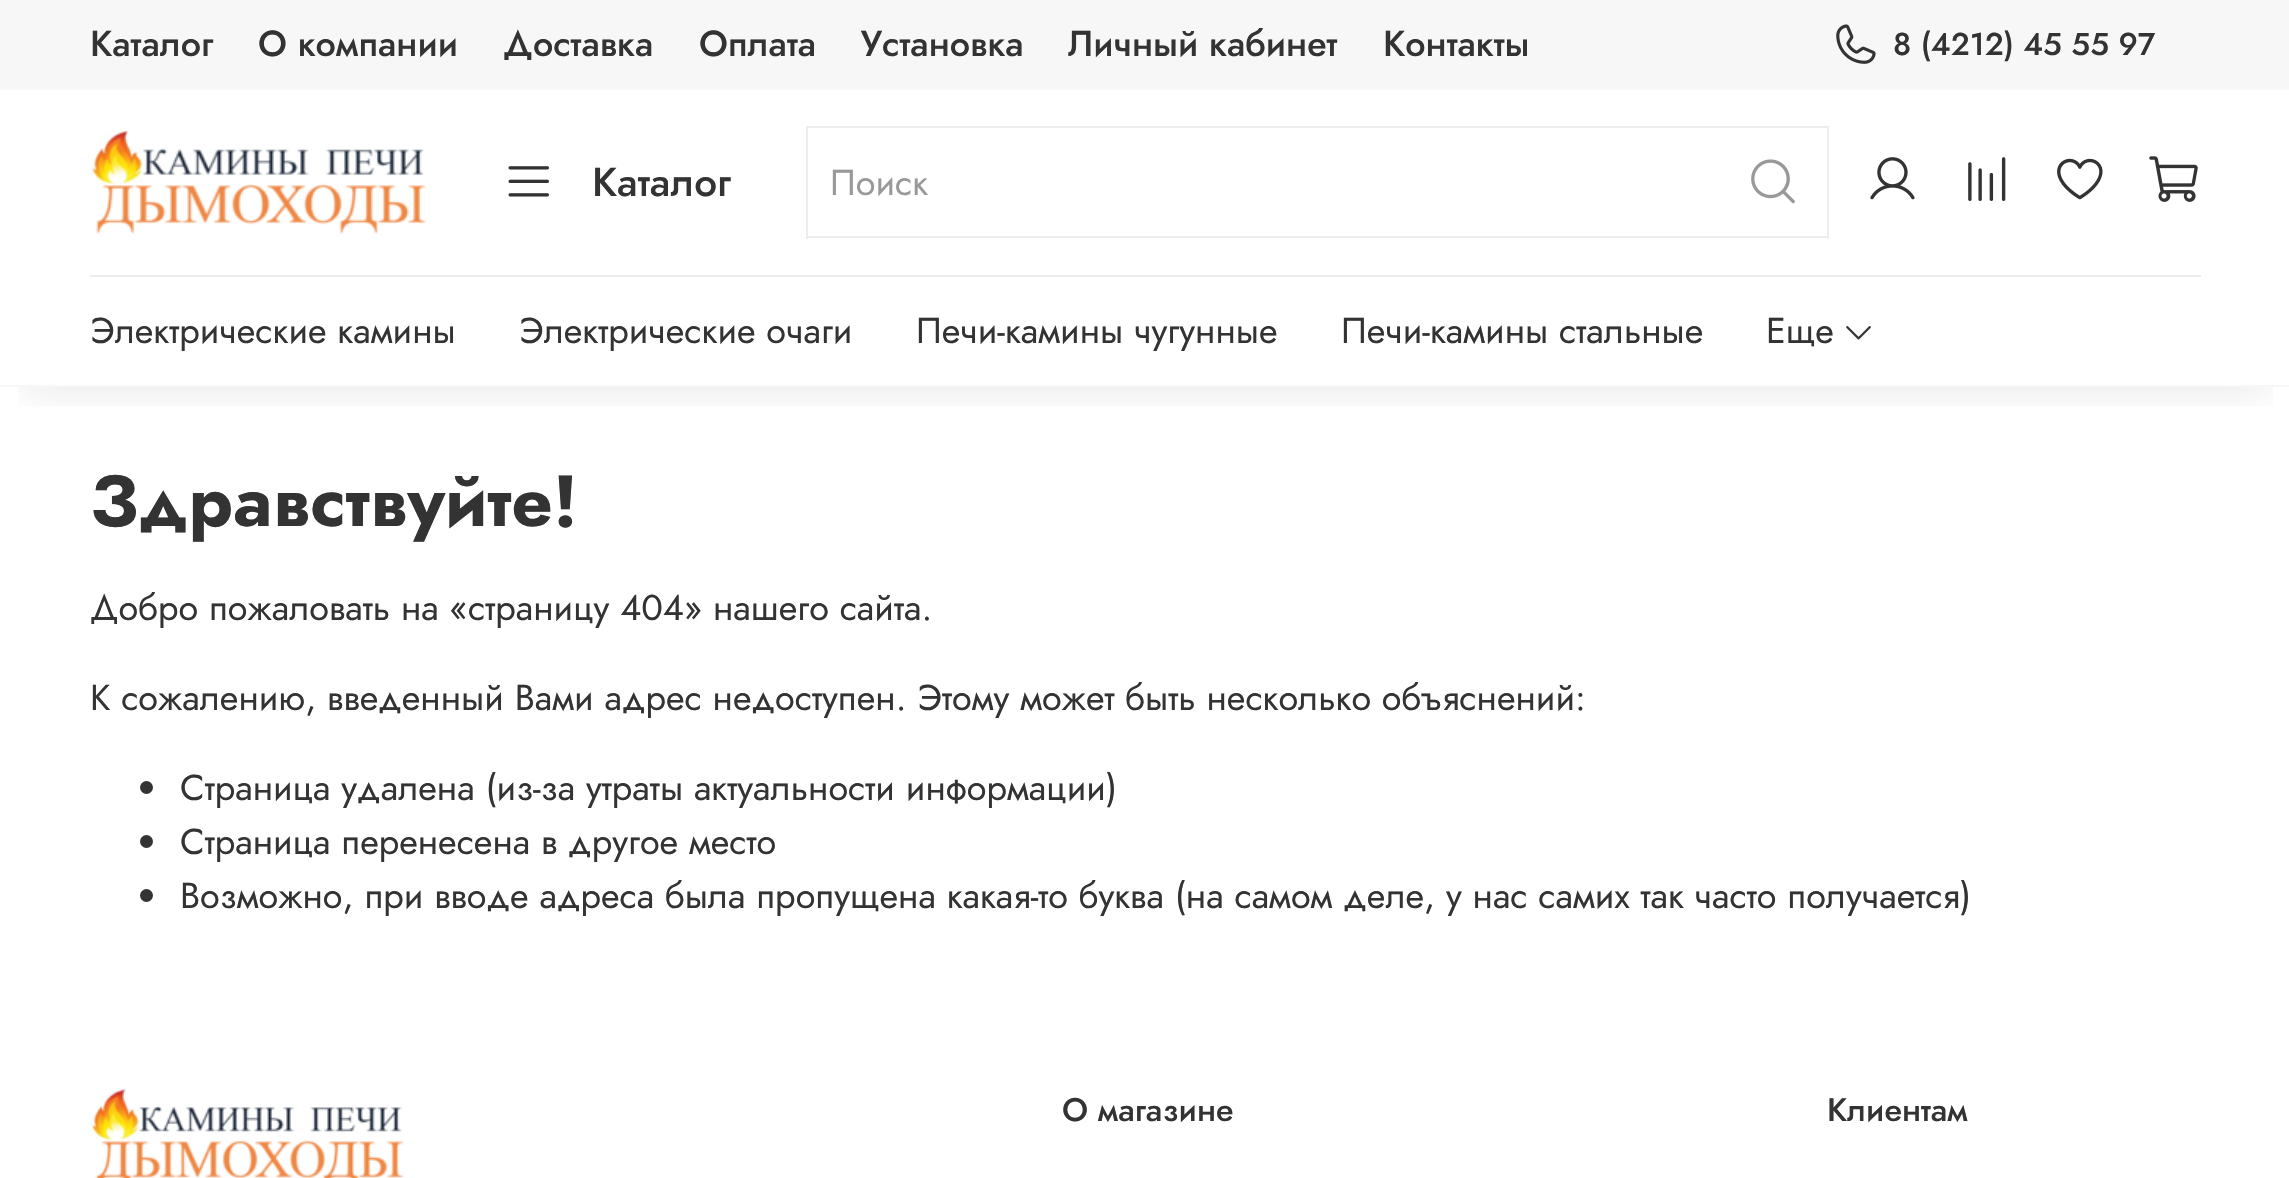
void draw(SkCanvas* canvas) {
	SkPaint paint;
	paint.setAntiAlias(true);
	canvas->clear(0xffffffff);
	paint.setColor(0xfff7f7f7);
	canvas->drawRect(SkRect::MakeXYWH(0, 0, 2289, 90), paint);
	SkFont f1(fontMgr->matchFamilyStyle("Jost", SkFontStyle(500, SkFontStyle::kNormal_Width, SkFontStyle::kUpright_Slant)), 36);
	f1.setSubpixel(true);
	paint.setColor(0xff333333);
	canvas->drawString("Каталог", 90, 56, f1, paint);
	canvas->drawString("О компании", 258, 56, f1, paint);
	canvas->drawString("Доставка", 503, 56, f1, paint);
	canvas->drawString("Оплата", 699, 56, f1, paint);
	canvas->drawString("Установка", 861, 56, f1, paint);
	canvas->drawString("Личный кабинет", 1068, 56, f1, paint);
	canvas->drawString("Контакты", 1383, 56, f1, paint);
	canvas->drawImageRect(SkImages::DeferredFromEncodedData(SkData::MakeFromFileName("img1.png")), SkRect::MakeXYWH(1836, 24, 40, 40), SkSamplingOptions());
	SkFont f2(fontMgr->matchFamilyStyle("Jost", SkFontStyle(500, SkFontStyle::kNormal_Width, SkFontStyle::kUpright_Slant)), 31.5);
	f2.setSubpixel(true);
	canvas->drawString("8 (4212) 45 55 97", 1893, 55, f2, paint);
	paint.setColor(0xffededed);
	canvas->drawRect(SkRect::MakeXYWH(90, 275, 2111, 2), paint);
	canvas->drawImageRect(SkImages::DeferredFromEncodedData(SkData::MakeFromFileName("img2.png")), SkRect::MakeXYWH(91, 130, 336, 104), SkSamplingOptions());
	canvas->drawImageRect(SkImages::DeferredFromEncodedData(SkData::MakeFromFileName("img3.png")), SkRect::MakeXYWH(508, 166, 41, 31), SkSamplingOptions());
	SkFont f3(fontMgr->matchFamilyStyle("Jost", SkFontStyle(500, SkFontStyle::kNormal_Width, SkFontStyle::kUpright_Slant)), 40.5);
	f3.setSubpixel(true);
	paint.setColor(0xff333333);
	canvas->drawString("Каталог", 592, 196, f3, paint);
	paint.setColor(0xffededed);
	canvas->drawRect(SkRect::MakeXYWH(806, 126, 1023, 2), paint);
	canvas->drawRect(SkRect::MakeXYWH(806, 236, 911, 2), paint);
	canvas->drawRect(SkRect::MakeXYWH(806, 126, 2, 113), paint);
	SkFont f4(fontMgr->matchFamilyStyle("Jost", SkFontStyle::Normal()), 36);
	f4.setSubpixel(true);
	paint.setColor(0xff999999);
	canvas->drawString("Поиск", 830, 195, f4, paint);
	paint.setColor(0xffededed);
	canvas->drawRect(SkRect::MakeXYWH(1827, 126, 2, 113), paint);
	canvas->drawRect(SkRect::MakeXYWH(1717, 236, 112, 2), paint);
	canvas->drawImageRect(SkImages::DeferredFromEncodedData(SkData::MakeFromFileName("img4.png")), SkRect::MakeXYWH(1751, 159, 44, 45), SkSamplingOptions());
	canvas->drawImageRect(SkImages::DeferredFromEncodedData(SkData::MakeFromFileName("img5.png")), SkRect::MakeXYWH(1870, 157, 45, 43), SkSamplingOptions());
	canvas->drawImageRect(SkImages::DeferredFromEncodedData(SkData::MakeFromFileName("img6.png")), SkRect::MakeXYWH(1968, 157, 38, 44), SkSamplingOptions());
	canvas->drawImageRect(SkImages::DeferredFromEncodedData(SkData::MakeFromFileName("img7.png")), SkRect::MakeXYWH(2057, 158, 46, 42), SkSamplingOptions());
	canvas->drawImageRect(SkImages::DeferredFromEncodedData(SkData::MakeFromFileName("img8.png")), SkRect::MakeXYWH(2149, 156, 49, 46), SkSamplingOptions());
	canvas->save();
	canvas->clipRect(SkRect::MakeXYWH(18, 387, 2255, 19));
	paint.setColor(0x1a000000);
	paint.setMaskFilter(SkMaskFilter::MakeBlur(kNormal_SkBlurStyle, 22.5));
	canvas->drawRect(SkRect::MakeXYWH(23, 322, 2245, 65), paint);
	paint.setMaskFilter(nullptr);
	canvas->restore();
	paint.setColor(0xfff7f7f7);
	canvas->drawRect(SkRect::MakeXYWH(0, 385, 2289, 2), paint);
	paint.setColor(0xff333333);
	canvas->drawString("Электрические камины", 90, 343, f4, paint);
	canvas->drawString("Электрические очаги", 519, 343, f4, paint);
	canvas->drawString("Печи-камины чугунные", 916, 343, f4, paint);
	canvas->drawString("Печи-камины стальные", 1341, 343, f4, paint);
	canvas->drawString("Еще", 1766, 343, f4, paint);
	canvas->drawImageRect(SkImages::DeferredFromEncodedData(SkData::MakeFromFileName("img9.png")), SkRect::MakeXYWH(1846, 326, 25, 14), SkSamplingOptions());
	SkFont f5(fontMgr->matchFamilyStyle("Jost", SkFontStyle::Bold()), 72);
	f5.setSubpixel(true);
	canvas->drawString("Здравствуйте!", 90, 526, f5, paint);
	canvas->drawString("Добро пожаловать на «страницу 404» нашего сайта.", 90, 620, f4, paint);
	canvas->drawString("К сожалению, введенный Вами адрес недоступен. Этому может быть несколько объяснений:", 90, 710, f4, paint);
	canvas->drawCircle(146.5, 787.5, 6.5, paint);
	canvas->drawString("Страница удалена (из-за утраты актуальности информации)", 180, 800, f4, paint);
	canvas->drawCircle(146.5, 841.5, 6.5, paint);
	canvas->drawString("Страница перенесена в другое место", 180, 854, f4, paint);
	canvas->drawCircle(146.5, 895.5, 6.5, paint);
	canvas->drawString("Возможно, при вводе адреса была пропущена какая-то буква (на самом деле, у нас самих так часто получается)", 180, 908, f4, paint);
	canvas->drawImageRect(SkImages::DeferredFromEncodedData(SkData::MakeFromFileName("img10.png")), SkRect::MakeXYWH(91, 1088, 313, 90), SkSamplingOptions());
	SkFont f6(fontMgr->matchFamilyStyle("Jost", SkFontStyle(500, SkFontStyle::kNormal_Width, SkFontStyle::kUpright_Slant)), 32.5);
	f6.setSubpixel(true);
	canvas->drawString("О магазине", 1062, 1121, f6, paint);
	canvas->drawString("Клиентам", 1827, 1121, f6, paint);
}
